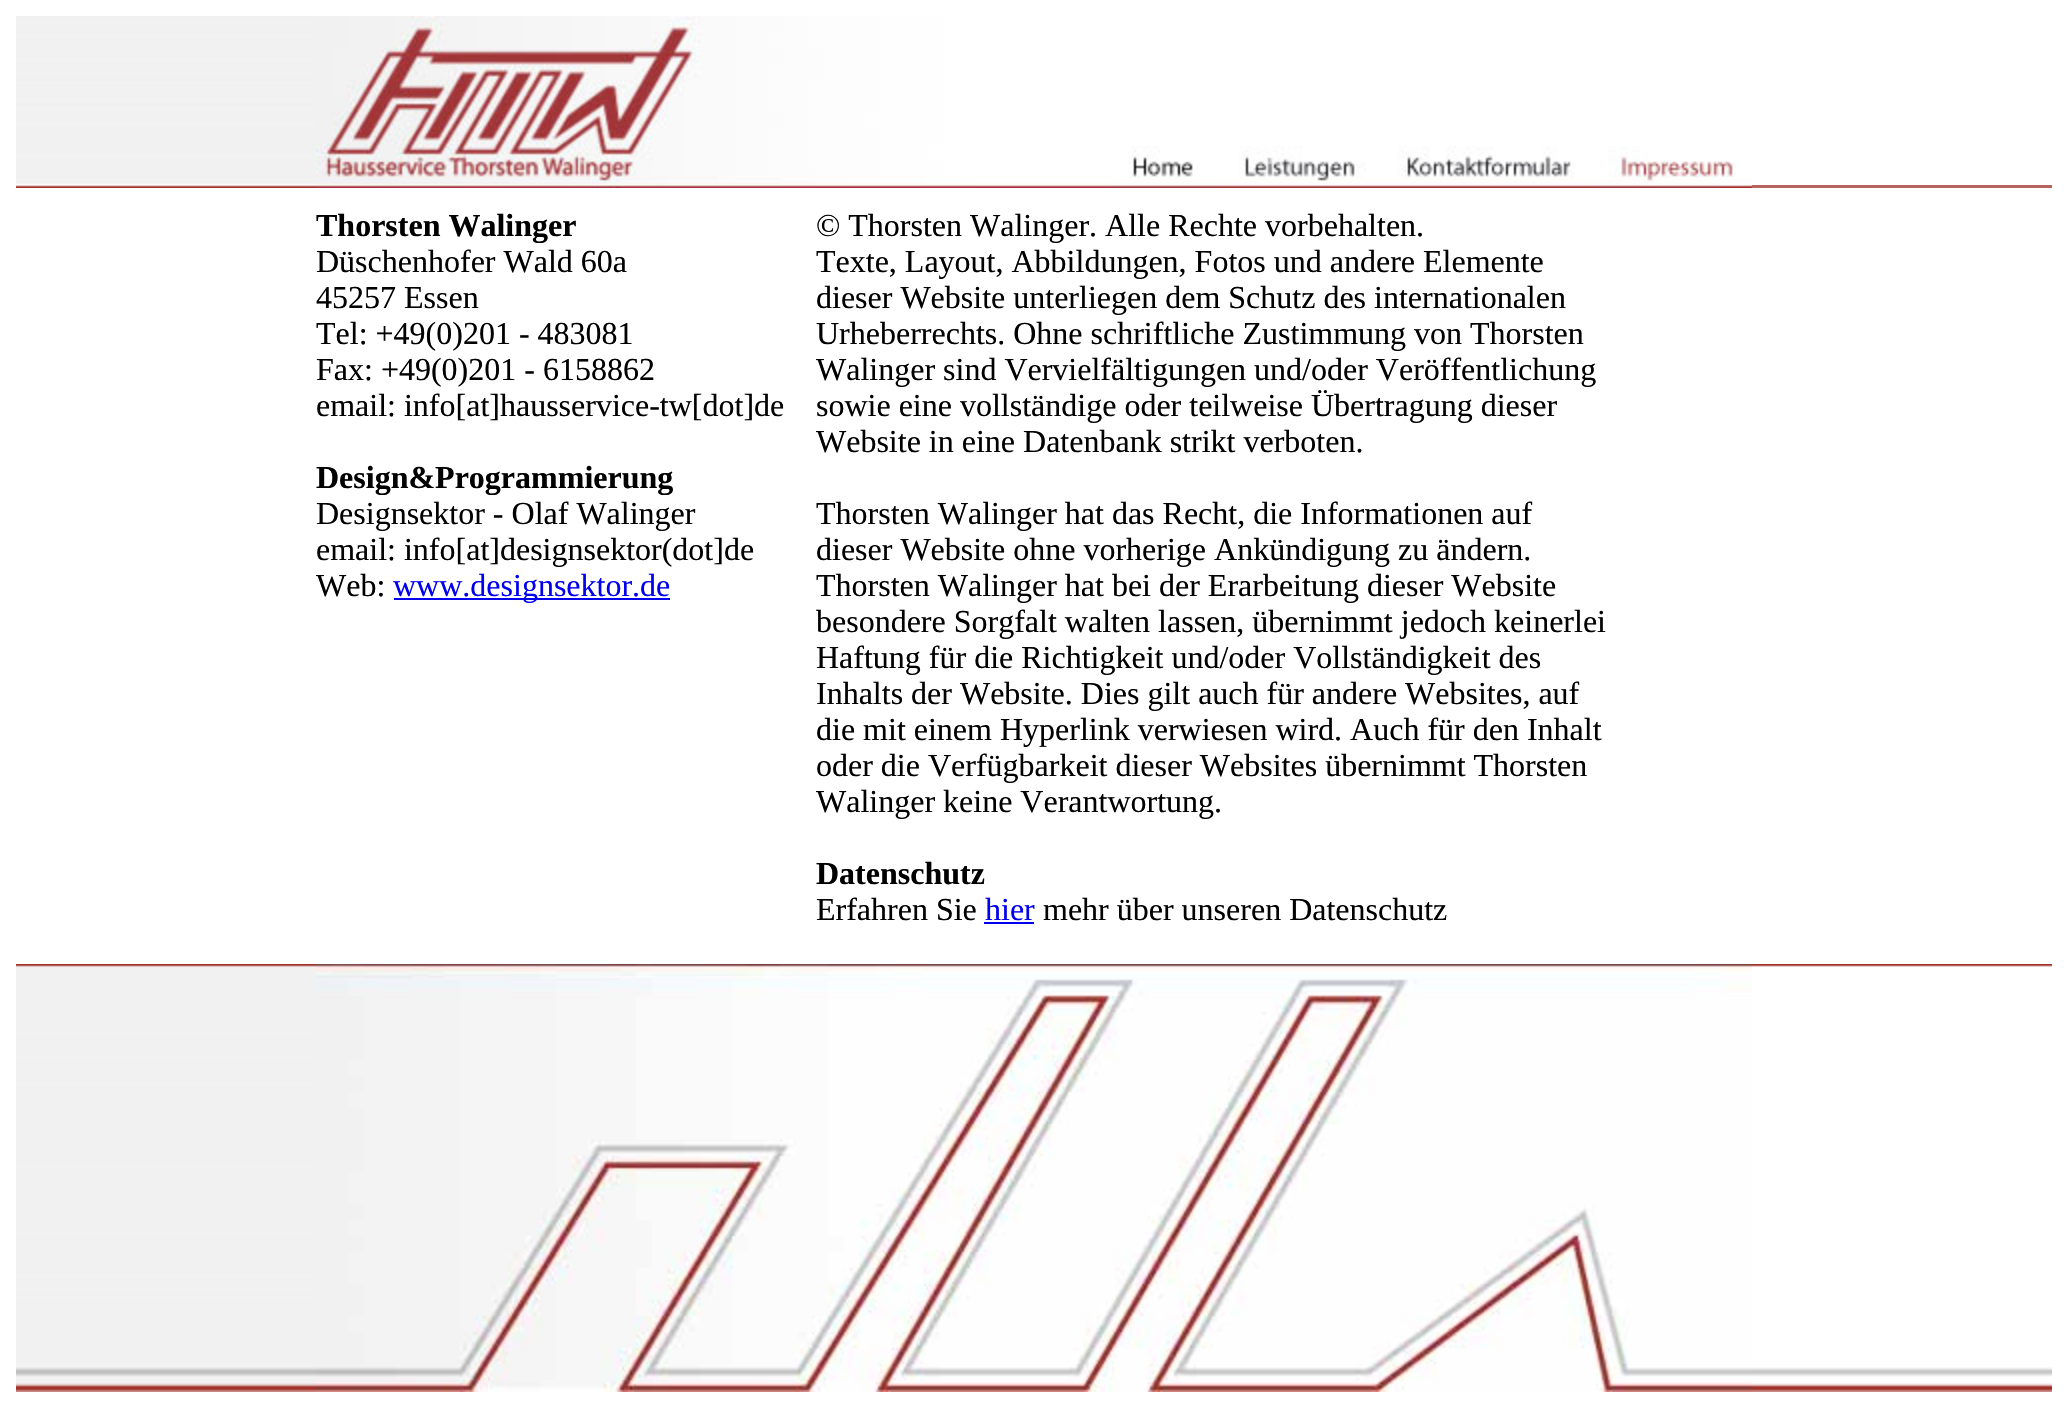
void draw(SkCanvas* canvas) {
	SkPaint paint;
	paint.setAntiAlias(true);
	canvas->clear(0xffffffff);
	canvas->drawImageRect(SkImages::DeferredFromEncodedData(SkData::MakeFromFileName("img1.png")), SkRect::MakeXYWH(16, 16, 300, 172), SkSamplingOptions());
	canvas->drawImageRect(SkImages::DeferredFromEncodedData(SkData::MakeFromFileName("img2.png")), SkRect::MakeXYWH(316, 16, 386, 172), SkSamplingOptions());
	canvas->drawImageRect(SkImages::DeferredFromEncodedData(SkData::MakeFromFileName("img3.png")), SkRect::MakeXYWH(702, 16, 410, 172), SkSamplingOptions());
	paint.setColor(0xffb8635e);
	canvas->drawRect(SkRect::MakeXYWH(1752, 185, 300, 3), paint);
	canvas->drawImageRect(SkImages::DeferredFromEncodedData(SkData::MakeFromFileName("img4.png")), SkRect::MakeXYWH(1112, 146, 110, 42), SkSamplingOptions());
	canvas->drawImageRect(SkImages::DeferredFromEncodedData(SkData::MakeFromFileName("img5.png")), SkRect::MakeXYWH(1222, 146, 160, 42), SkSamplingOptions());
	canvas->drawImageRect(SkImages::DeferredFromEncodedData(SkData::MakeFromFileName("img6.png")), SkRect::MakeXYWH(1382, 146, 210, 42), SkSamplingOptions());
	canvas->drawImageRect(SkImages::DeferredFromEncodedData(SkData::MakeFromFileName("img7.png")), SkRect::MakeXYWH(1592, 146, 160, 42), SkSamplingOptions());
	SkFont f1(fontMgr->matchFamilyStyle("Liberation Serif", SkFontStyle::Bold()), 32);
	f1.setSubpixel(true);
	paint.setColor(0xff000000);
	canvas->drawString("Thorsten Walinger", 316, 236, f1, paint);
	SkFont f2(fontMgr->matchFamilyStyle("Liberation Serif", SkFontStyle::Normal()), 32);
	f2.setSubpixel(true);
	canvas->drawString("Düschenhofer Wald 60a", 316, 272, f2, paint);
	canvas->drawString("45257 Essen", 316, 308, f2, paint);
	canvas->drawString("Tel: +49(0)201 - 483081", 316, 344, f2, paint);
	canvas->drawString("Fax: +49(0)201 - 6158862", 316, 380, f2, paint);
	canvas->drawString("email: info[at]hausservice-tw[dot]de", 316, 416, f2, paint);
	canvas->drawString("Design&Programmierung", 316, 488, f1, paint);
	canvas->drawString("Designsektor - Olaf Walinger", 316, 524, f2, paint);
	canvas->drawString("email: info[at]designsektor(dot]de", 316, 560, f2, paint);
	canvas->drawString("Web:", 316, 596, f2, paint);
	paint.setColor(0xff0000ee);
	canvas->drawRect(SkRect::MakeXYWH(394, 598, 276, 2), paint);
	canvas->drawString("www.designsektor.de", 393, 596, f2, paint);
	paint.setColor(0xff000000);
	canvas->drawString("© Thorsten Walinger. Alle Rechte vorbehalten.", 816, 236, f2, paint);
	canvas->drawString("Texte, Layout, Abbildungen, Fotos und andere Elemente", 816, 272, f2, paint);
	canvas->drawString("dieser Website unterliegen dem Schutz des internationalen", 816, 308, f2, paint);
	canvas->drawString("Urheberrechts. Ohne schriftliche Zustimmung von Thorsten", 816, 344, f2, paint);
	canvas->drawString("Walinger sind Vervielfältigungen und/oder Veröffentlichung", 816, 380, f2, paint);
	canvas->drawString("sowie eine vollständige oder teilweise Übertragung dieser", 816, 416, f2, paint);
	canvas->drawString("Website in eine Datenbank strikt verboten.", 816, 452, f2, paint);
	canvas->drawString("Thorsten Walinger hat das Recht, die Informationen auf", 816, 524, f2, paint);
	canvas->drawString("dieser Website ohne vorherige Ankündigung zu ändern.", 816, 560, f2, paint);
	canvas->drawString("Thorsten Walinger hat bei der Erarbeitung dieser Website", 816, 596, f2, paint);
	canvas->drawString("besondere Sorgfalt walten lassen, übernimmt jedoch keinerlei", 816, 632, f2, paint);
	canvas->drawString("Haftung für die Richtigkeit und/oder Vollständigkeit des", 816, 668, f2, paint);
	canvas->drawString("Inhalts der Website. Dies gilt auch für andere Websites, auf", 816, 704, f2, paint);
	canvas->drawString("die mit einem Hyperlink verwiesen wird. Auch für den Inhalt", 816, 740, f2, paint);
	canvas->drawString("oder die Verfügbarkeit dieser Websites übernimmt Thorsten", 816, 776, f2, paint);
	canvas->drawString("Walinger keine Verantwortung.", 816, 812, f2, paint);
	canvas->drawString("Datenschutz", 816, 884, f1, paint);
	canvas->drawString("Erfahren Sie", 816, 920, f2, paint);
	paint.setColor(0xff0000ee);
	canvas->drawString("hier", 985, 920, f2, paint);
	canvas->drawRect(SkRect::MakeXYWH(984, 922, 50, 2), paint);
	paint.setColor(0xff000000);
	canvas->drawString("mehr über unseren Datenschutz", 1043, 920, f2, paint);
	canvas->drawImageRect(SkImages::DeferredFromEncodedData(SkData::MakeFromFileName("img8.png")), SkRect::MakeXYWH(16, 964, 300, 428), SkSamplingOptions());
	canvas->drawImageRect(SkImages::DeferredFromEncodedData(SkData::MakeFromFileName("img9.png")), SkRect::MakeXYWH(316, 964, 1436, 428), SkSamplingOptions());
	canvas->drawImageRect(SkImages::DeferredFromEncodedData(SkData::MakeFromFileName("img10.png")), SkRect::MakeXYWH(1752, 964, 300, 428), SkSamplingOptions());
}
